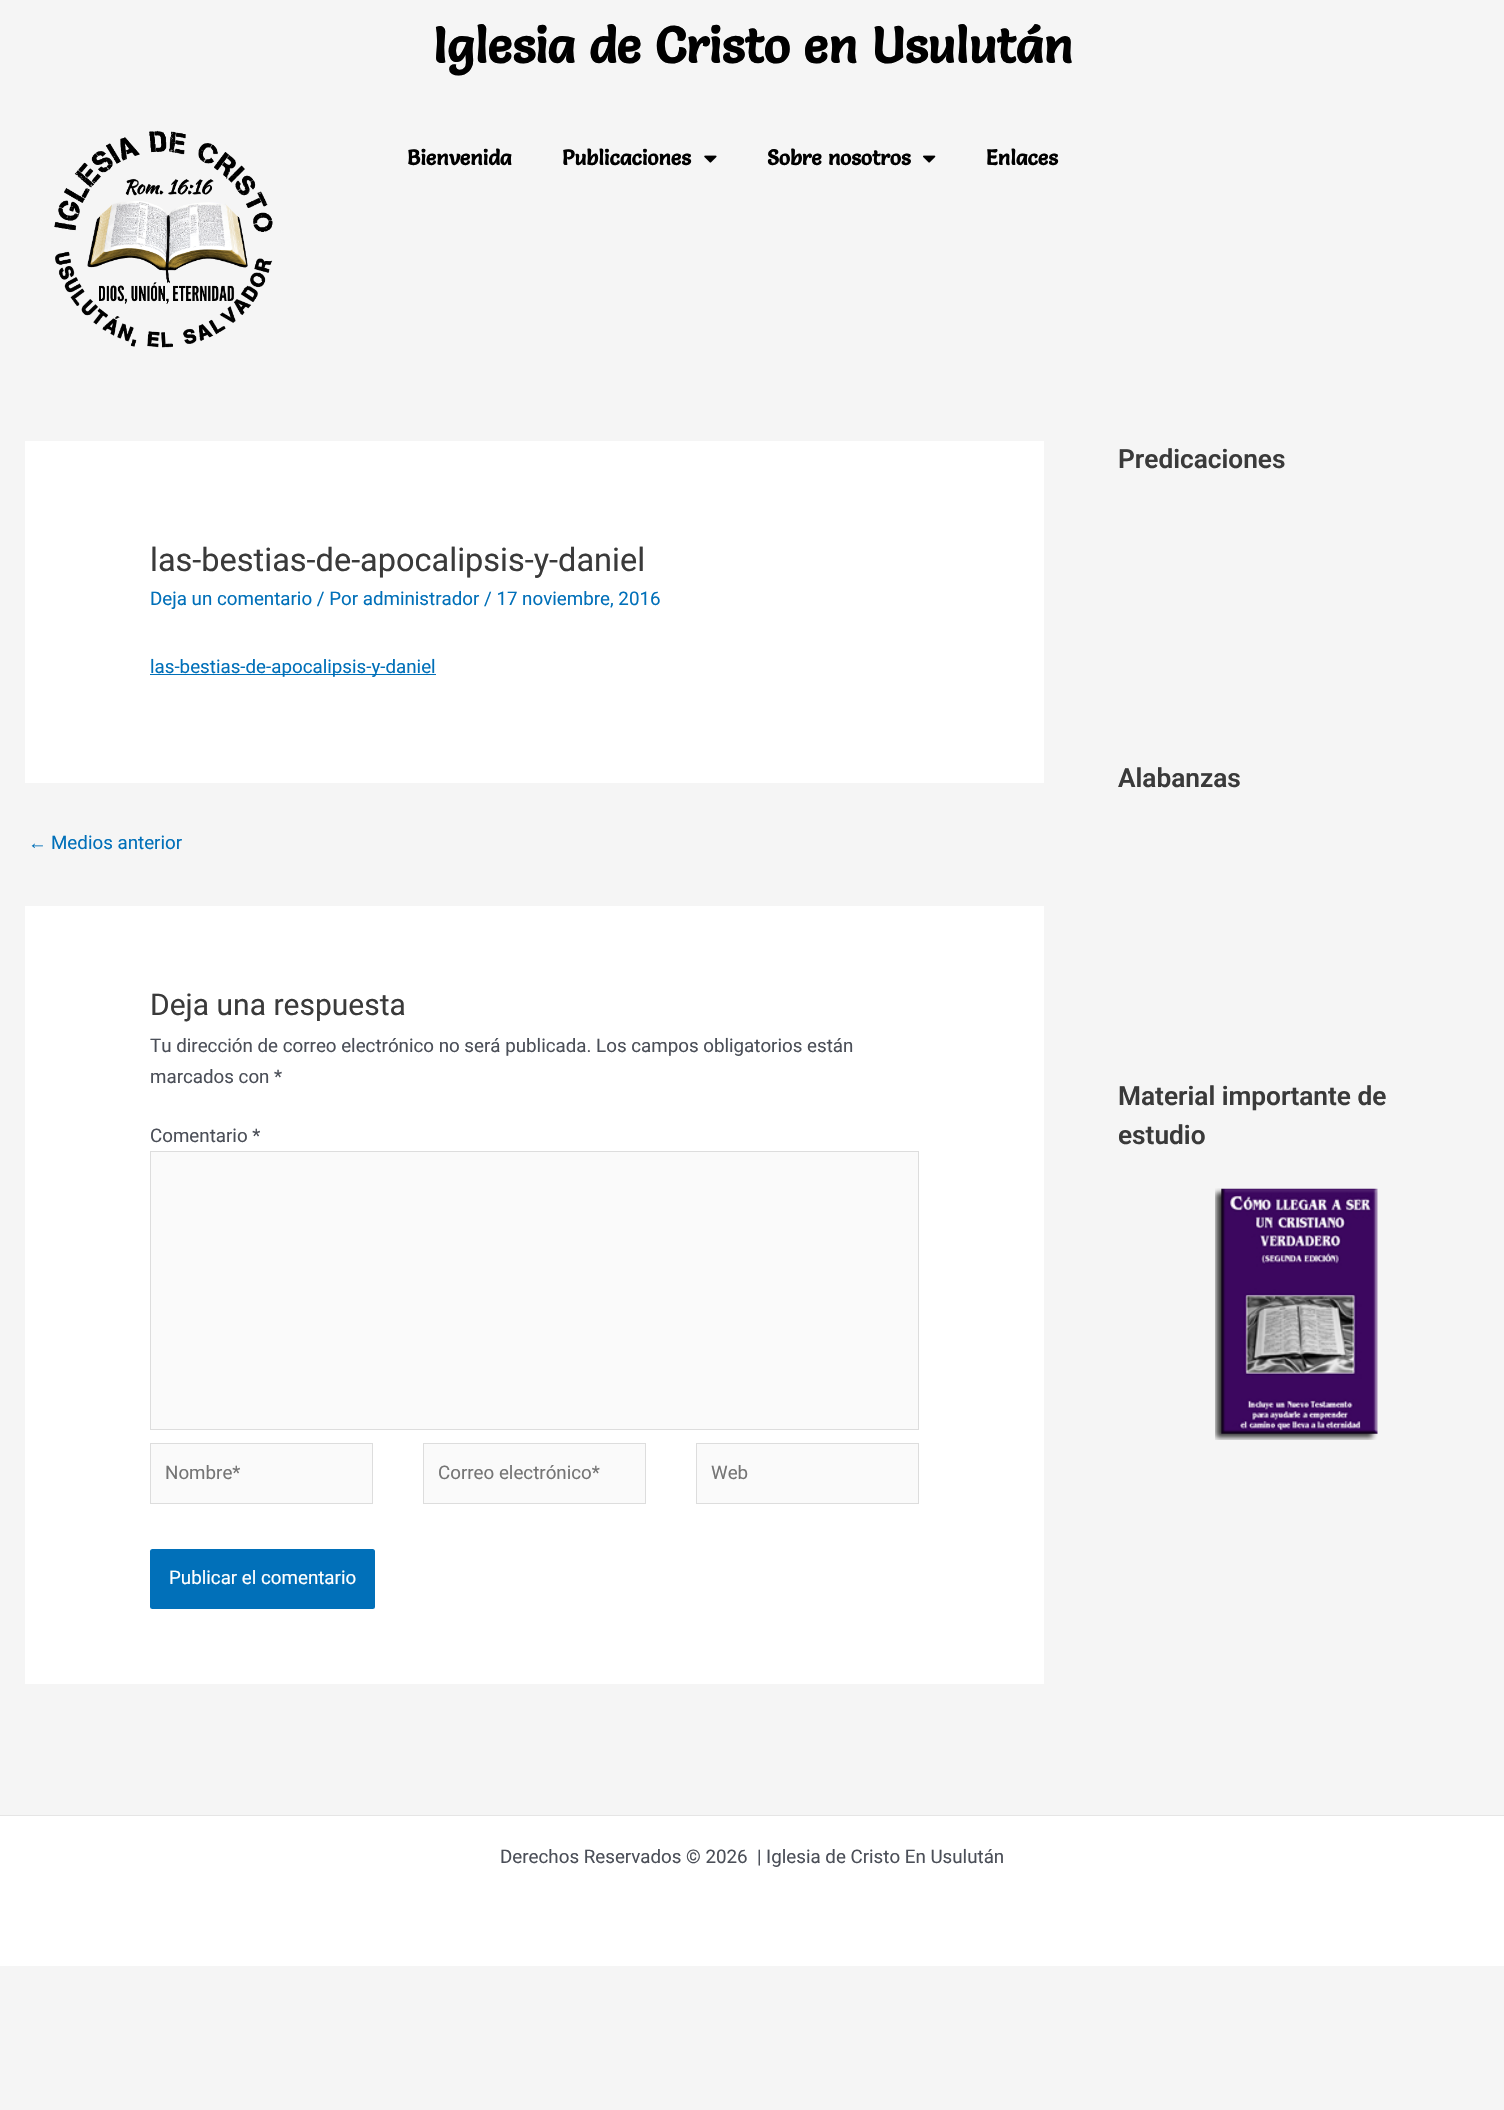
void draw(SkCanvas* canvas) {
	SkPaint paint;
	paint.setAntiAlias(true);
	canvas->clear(0xfff5f5f5);
	SkFont f1(fontMgr->matchFamilyStyle("Salsa", SkFontStyle::Bold()), 50);
	f1.setSubpixel(true);
	paint.setColor(0xff000000);
	canvas->drawString("Iglesia de Cristo en Usulután", 433, 63, f1, paint);
	canvas->drawImageRect(SkImages::DeferredFromEncodedData(SkData::MakeFromFileName("img1.png")), SkRect::MakeXYWH(54, 130, 219, 218), SkSamplingOptions());
	SkFont f2(fontMgr->matchFamilyStyle("Salsa", SkFontStyle::Bold()), 21.25);
	f2.setSubpixel(true);
	canvas->drawString("Bienvenida", 407, 165, f2, paint);
	canvas->drawString("Publicaciones", 562, 165, f2, paint);
	canvas->drawImageRect(SkImages::DeferredFromEncodedData(SkData::MakeFromFileName("img2.png")), SkRect::MakeXYWH(704, 155, 13, 8), SkSamplingOptions());
	canvas->drawString("Sobre nosotros", 767, 165, f2, paint);
	canvas->drawImageRect(SkImages::DeferredFromEncodedData(SkData::MakeFromFileName("img3.png")), SkRect::MakeXYWH(923, 155, 13, 8), SkSamplingOptions());
	canvas->drawString("Enlaces", 986, 165, f2, paint);
	paint.setColor(0xffffffff);
	canvas->drawRect(SkRect::MakeXYWH(25, 441, 1019, 342), paint);
	SkFont f3(fontMgr->matchFamilyStyle("Roboto", SkFontStyle::Normal()), 32.5);
	f3.setSubpixel(true);
	paint.setColor(0xff3a3a3a);
	canvas->drawString("las-bestias-de-apocalipsis-y-daniel", 150, 571, f3, paint);
	SkFont f4(fontMgr->matchFamilyStyle("Roboto", SkFontStyle::Normal()), 18.75);
	f4.setSubpixel(true);
	paint.setColor(0xff0170b9);
	canvas->drawString("Deja un comentario / Por administrador / 17 noviembre, 2016", 150, 605, f4, paint);
	canvas->drawRect(SkRect::MakeXYWH(150, 674, 286, 1), paint);
	canvas->drawString("las-bestias-de-apocalipsis-y-daniel", 150, 673, f4, paint);
	SkFont f5(fontMgr->matchFamilyStyle("Liberation Sans", SkFontStyle::Normal()), 18.75);
	f5.setSubpixel(true);
	canvas->drawString("←", 28, 849, f5, paint);
	canvas->drawString("Medios anterior", 51, 849, f4, paint);
	paint.setColor(0xffffffff);
	canvas->drawRect(SkRect::MakeXYWH(25, 906, 1019, 778), paint);
	SkFont f6(fontMgr->matchFamilyStyle("Roboto", SkFontStyle::Normal()), 30);
	f6.setSubpixel(true);
	paint.setColor(0xff3a3a3a);
	canvas->drawString("Deja una respuesta", 150, 1015, f6, paint);
	paint.setColor(0xff4b4f58);
	canvas->drawString("Tu dirección de correo electrónico no será publicada. Los campos obligatorios están", 150, 1052, f4, paint);
	canvas->drawString("marcados con *", 150, 1083, f4, paint);
	canvas->drawString("Comentario *", 150, 1142, f4, paint);
	paint.setColor(0xfffafafa);
	canvas->drawRect(SkRect::MakeXYWH(150.5, 1151.5, 768, 278), paint);
	paint.setStroke(true);
	paint.setStrokeWidth(1);
	paint.setColor(0xffdddddd);
	canvas->drawRect(SkRect::MakeXYWH(150.5, 1151.5, 768, 278), paint);
	paint.setStroke(false);
	paint.setColor(0xfffafafa);
	canvas->drawRect(SkRect::MakeXYWH(150.5, 1443.5, 222, 60), paint);
	paint.setStroke(true);
	paint.setColor(0xffdddddd);
	canvas->drawRect(SkRect::MakeXYWH(150.5, 1443.5, 222, 60), paint);
	paint.setStroke(false);
	paint.setColor(0xff757575);
	canvas->drawString("Nombre*", 165, 1479, f4, paint);
	paint.setColor(0xfffafafa);
	canvas->drawRect(SkRect::MakeXYWH(423.5, 1443.5, 222, 60), paint);
	paint.setStroke(true);
	paint.setColor(0xffdddddd);
	canvas->drawRect(SkRect::MakeXYWH(423.5, 1443.5, 222, 60), paint);
	paint.setStroke(false);
	paint.setColor(0xff757575);
	canvas->drawString("Correo electrónico*", 438, 1479, f4, paint);
	paint.setColor(0xfffafafa);
	canvas->drawRect(SkRect::MakeXYWH(696.5, 1443.5, 222, 60), paint);
	paint.setStroke(true);
	paint.setColor(0xffdddddd);
	canvas->drawRect(SkRect::MakeXYWH(696.5, 1443.5, 222, 60), paint);
	paint.setStroke(false);
	paint.setColor(0xff757575);
	canvas->drawString("Web", 711, 1479, f4, paint);
	paint.setColor(0xff0170b9);
	canvas->drawRoundRect(SkRect::MakeXYWH(150, 1549, 225, 60), 2.5, 2.5, paint);
	paint.setColor(0xffffffff);
	canvas->drawString("Publicar el comentario", 169, 1584, f4, paint);
	SkFont f7(fontMgr->matchFamilyStyle("Roboto", SkFontStyle(600, SkFontStyle::kNormal_Width, SkFontStyle::kUpright_Slant)), 26.25);
	f7.setSubpixel(true);
	paint.setColor(0xff3a3a3a);
	canvas->drawString("Predicaciones", 1118, 468, f7, paint);
	canvas->drawString("Alabanzas", 1118, 787, f7, paint);
	canvas->drawString("Material importante de", 1118, 1105, f7, paint);
	canvas->drawString("estudio", 1118, 1144, f7, paint);
	canvas->drawImageRect(SkImages::DeferredFromEncodedData(SkData::MakeFromFileName("img4.png")), SkRect::MakeXYWH(1215, 1188, 163, 252), SkSamplingOptions());
	paint.setColor(0xffffffff);
	canvas->drawRect(SkRect::MakeXYWH(0, 1816, 1504, 150), paint);
	paint.setColor(0xffe5e5e5);
	canvas->drawRect(SkRect::MakeXYWH(0, 1815, 1504, 1), paint);
	paint.setColor(0xff4b4f58);
	canvas->drawString("Derechos Reservados © 2026  | Iglesia de Cristo En Usulután", 500, 1863, f4, paint);
}
